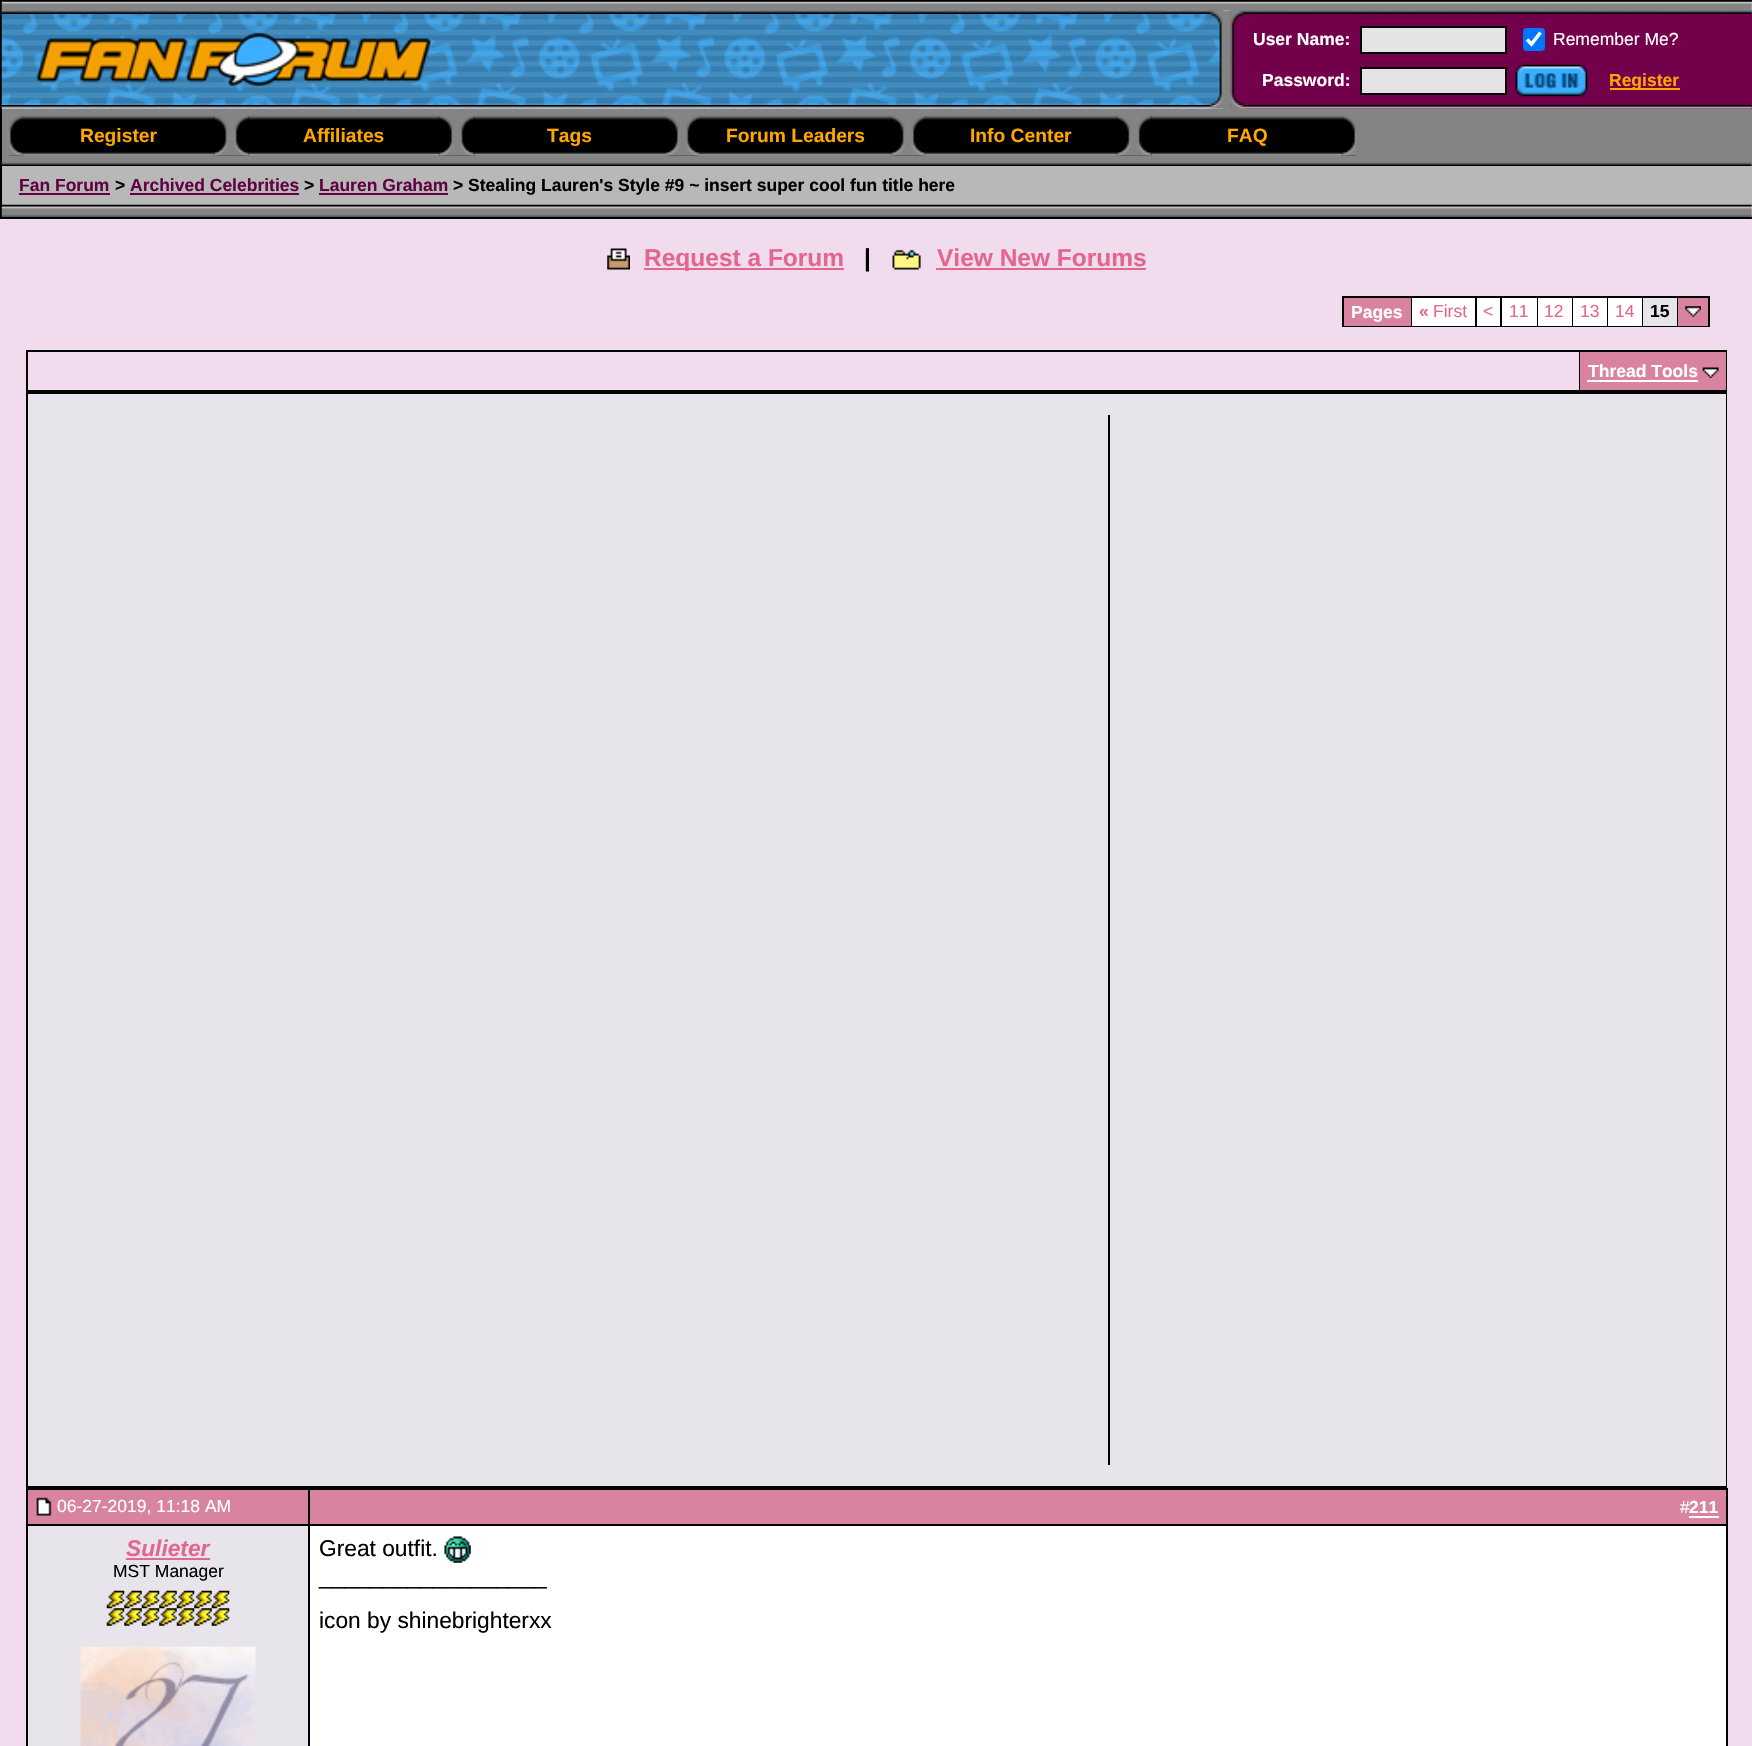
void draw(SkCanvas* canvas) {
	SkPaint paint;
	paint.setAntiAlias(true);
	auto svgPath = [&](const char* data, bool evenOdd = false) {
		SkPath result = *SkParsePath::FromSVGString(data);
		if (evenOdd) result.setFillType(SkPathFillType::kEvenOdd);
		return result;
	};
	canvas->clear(0xfff1dcef);
	paint.setStroke(true);
	paint.setStrokeWidth(2);
	paint.setColor(0xff000000);
	canvas->drawRect(SkRect::MakeXYWH(1, 1, 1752, 217), paint);
	canvas->drawImageRect(SkImages::DeferredFromEncodedData(SkData::MakeFromFileName("img1.png")), SkRect::MakeXYWH(1, 1, 1751, 10), SkSamplingOptions());
	canvas->drawImageRect(SkImages::DeferredFromEncodedData(SkData::MakeFromFileName("img2.png")), SkRect::MakeXYWH(1, 10, 1751, 99), SkSamplingOptions());
	canvas->drawImageRect(SkImages::DeferredFromEncodedData(SkData::MakeFromFileName("img3.png")), SkRect::MakeXYWH(1, 10, 1223, 4), SkSamplingOptions());
	paint.setStroke(false);
	paint.setColor(0xff858484);
	canvas->drawRect(SkRect::MakeXYWH(1223, 11, 7, 98), paint);
	canvas->drawImageRect(SkImages::DeferredFromEncodedData(SkData::MakeFromFileName("img4.png")), SkRect::MakeXYWH(1209, 10, 15, 4), SkSamplingOptions());
	canvas->drawImageRect(SkImages::DeferredFromEncodedData(SkData::MakeFromFileName("img5.png")), SkRect::MakeXYWH(1230, 10, 522, 4), SkSamplingOptions());
	canvas->drawImageRect(SkImages::DeferredFromEncodedData(SkData::MakeFromFileName("img6.png")), SkRect::MakeXYWH(1230, 10, 15, 4), SkSamplingOptions());
	canvas->drawImageRect(SkImages::DeferredFromEncodedData(SkData::MakeFromFileName("img12.png")), SkRect::MakeXYWH(1219, 24, 4, 36), SkSamplingOptions());
	canvas->drawImageRect(SkImages::DeferredFromEncodedData(SkData::MakeFromFileName("img7.png")), SkRect::MakeXYWH(1219, 59, 4, 36), SkSamplingOptions());
	canvas->drawImageRect(SkImages::DeferredFromEncodedData(SkData::MakeFromFileName("img8.png")), SkRect::MakeXYWH(1209, 94, 14, 11), SkSamplingOptions());
	paint.setColor(0xff73004a);
	canvas->drawRect(SkRect::MakeXYWH(1230, 14, 14, 91), paint);
	canvas->drawImageRect(SkImages::DeferredFromEncodedData(SkData::MakeFromFileName("img14.png")), SkRect::MakeXYWH(1230, 14, 5, 46), SkSamplingOptions());
	canvas->drawImageRect(SkImages::DeferredFromEncodedData(SkData::MakeFromFileName("img9.png")), SkRect::MakeXYWH(1230, 59, 5, 46), SkSamplingOptions());
	canvas->drawRect(SkRect::MakeXYWH(1244, 14, 508, 91), paint);
	canvas->drawImageRect(SkImages::DeferredFromEncodedData(SkData::MakeFromFileName("img10.png")), SkRect::MakeXYWH(1230, 94, 15, 11), SkSamplingOptions());
	canvas->drawImageRect(SkImages::DeferredFromEncodedData(SkData::MakeFromFileName("img11.png")), SkRect::MakeXYWH(36, 33, 395, 53), SkSamplingOptions());
	canvas->drawImageRect(SkImages::DeferredFromEncodedData(SkData::MakeFromFileName("img13.png")), SkRect::MakeXYWH(1209, 14, 14, 11), SkSamplingOptions());
	canvas->drawImageRect(SkImages::DeferredFromEncodedData(SkData::MakeFromFileName("img15.png")), SkRect::MakeXYWH(1230, 14, 15, 11), SkSamplingOptions());
	SkFont f1(fontMgr->matchFamilyStyle("Liberation Sans", SkFontStyle::Bold()), 17.5);
	f1.setSubpixel(true);
	paint.setColor(0xffffffff);
	canvas->drawString("User Name:", 1253, 45, f1, paint);
	paint.setColor(0xffe5e4e4);
	canvas->drawRect(SkRect::MakeXYWH(1361, 27, 145, 26), paint);
	paint.setStroke(true);
	paint.setColor(0xff000000);
	canvas->drawRect(SkRect::MakeXYWH(1361, 27, 145, 26), paint);
	paint.setStroke(false);
	paint.setColor(0xff0075ff);
	canvas->drawRoundRect(SkRect::MakeXYWH(1523, 28, 22, 23), 4, 4, paint);
	paint.setStroke(true);
	paint.setStrokeWidth(3.6);
	paint.setColor(0xffffffff);
	canvas->drawPath(svgPath("M1527 39.5L1531.5 44L1540.5 32.5"), paint);
	SkFont f2(fontMgr->matchFamilyStyle("Liberation Sans", SkFontStyle::Normal()), 17.5);
	f2.setSubpixel(true);
	paint.setStroke(false);
	canvas->drawString("Remember Me?", 1553, 45, f2, paint);
	canvas->drawString("Password:", 1262, 86, f1, paint);
	paint.setColor(0xffe5e4e4);
	canvas->drawRect(SkRect::MakeXYWH(1361, 68, 145, 26), paint);
	paint.setStroke(true);
	paint.setStrokeWidth(2);
	paint.setColor(0xff000000);
	canvas->drawRect(SkRect::MakeXYWH(1361, 68, 145, 26), paint);
	canvas->drawImageRect(SkImages::DeferredFromEncodedData(SkData::MakeFromFileName("img16.png")), SkRect::MakeXYWH(1515, 64, 73, 33), SkSamplingOptions());
	paint.setStroke(false);
	paint.setColor(0xffffa600);
	canvas->drawRect(SkRect::MakeXYWH(1610, 88, 70, 2), paint);
	canvas->drawString("Register", 1609, 86, f1, paint);
	canvas->drawImageRect(SkImages::DeferredFromEncodedData(SkData::MakeFromFileName("img17.png")), SkRect::MakeXYWH(1, 105, 1222, 4), SkSamplingOptions());
	canvas->drawImageRect(SkImages::DeferredFromEncodedData(SkData::MakeFromFileName("img18.png")), SkRect::MakeXYWH(1209, 105, 14, 4), SkSamplingOptions());
	paint.setColor(0xff73004a);
	canvas->drawRect(SkRect::MakeXYWH(1230, 105, 522, 4), paint);
	canvas->drawImageRect(SkImages::DeferredFromEncodedData(SkData::MakeFromFileName("img19.png")), SkRect::MakeXYWH(1230, 105, 522, 4), SkSamplingOptions());
	canvas->drawImageRect(SkImages::DeferredFromEncodedData(SkData::MakeFromFileName("img20.png")), SkRect::MakeXYWH(1230, 105, 15, 4), SkSamplingOptions());
	paint.setColor(0xff858484);
	canvas->drawRect(SkRect::MakeXYWH(2, 109, 1750, 54), paint);
	paint.setColor(0xff000000);
	canvas->drawRect(SkRect::MakeXYWH(9, 116, 240, 40), paint);
	canvas->drawImageRect(SkImages::DeferredFromEncodedData(SkData::MakeFromFileName("img21.png")), SkRect::MakeXYWH(9, 115, 14, 41), SkSamplingOptions());
	canvas->drawImageRect(SkImages::DeferredFromEncodedData(SkData::MakeFromFileName("img22.png")), SkRect::MakeXYWH(22, 115, 192, 41), SkSamplingOptions());
	SkFont f3(fontMgr->matchFamilyStyle("Liberation Sans", SkFontStyle::Bold()), 19.25);
	f3.setSubpixel(true);
	paint.setColor(0xffffa600);
	canvas->drawString("Register", 80, 142, f3, paint);
	canvas->drawImageRect(SkImages::DeferredFromEncodedData(SkData::MakeFromFileName("img23.png")), SkRect::MakeXYWH(213, 115, 36, 41), SkSamplingOptions());
	paint.setColor(0xff000000);
	canvas->drawRect(SkRect::MakeXYWH(249, 120, 190, 36), paint);
	canvas->drawImageRect(SkImages::DeferredFromEncodedData(SkData::MakeFromFileName("img24.png")), SkRect::MakeXYWH(248, 115, 192, 41), SkSamplingOptions());
	paint.setColor(0xffffa600);
	canvas->drawString("Affiliates", 303, 142, f3, paint);
	paint.setColor(0xff000000);
	canvas->drawRect(SkRect::MakeXYWH(439, 116, 35, 40), paint);
	canvas->drawImageRect(SkImages::DeferredFromEncodedData(SkData::MakeFromFileName("img25.png")), SkRect::MakeXYWH(439, 115, 36, 41), SkSamplingOptions());
	canvas->drawRect(SkRect::MakeXYWH(474, 116, 191, 40), paint);
	canvas->drawImageRect(SkImages::DeferredFromEncodedData(SkData::MakeFromFileName("img26.png")), SkRect::MakeXYWH(474, 115, 191, 41), SkSamplingOptions());
	paint.setColor(0xffffa600);
	canvas->drawString("Tags", 547, 142, f3, paint);
	paint.setColor(0xff000000);
	canvas->drawRect(SkRect::MakeXYWH(665, 120, 35, 36), paint);
	canvas->drawImageRect(SkImages::DeferredFromEncodedData(SkData::MakeFromFileName("img27.png")), SkRect::MakeXYWH(665, 115, 35, 41), SkSamplingOptions());
	canvas->drawRect(SkRect::MakeXYWH(700, 116, 452, 40), paint);
	canvas->drawImageRect(SkImages::DeferredFromEncodedData(SkData::MakeFromFileName("img28.png")), SkRect::MakeXYWH(700, 115, 191, 41), SkSamplingOptions());
	paint.setColor(0xffffa600);
	canvas->drawString("Forum Leaders", 726, 142, f3, paint);
	canvas->drawImageRect(SkImages::DeferredFromEncodedData(SkData::MakeFromFileName("img29.png")), SkRect::MakeXYWH(890, 115, 36, 41), SkSamplingOptions());
	canvas->drawImageRect(SkImages::DeferredFromEncodedData(SkData::MakeFromFileName("img22.png")), SkRect::MakeXYWH(925, 115, 192, 41), SkSamplingOptions());
	canvas->drawString("Info Center", 970, 142, f3, paint);
	canvas->drawImageRect(SkImages::DeferredFromEncodedData(SkData::MakeFromFileName("img30.png")), SkRect::MakeXYWH(1116, 115, 36, 41), SkSamplingOptions());
	paint.setColor(0xff000000);
	canvas->drawRect(SkRect::MakeXYWH(1152, 120, 190, 36), paint);
	canvas->drawImageRect(SkImages::DeferredFromEncodedData(SkData::MakeFromFileName("img24.png")), SkRect::MakeXYWH(1151, 115, 192, 41), SkSamplingOptions());
	paint.setColor(0xffffa600);
	canvas->drawString("FAQ", 1227, 142, f3, paint);
	paint.setColor(0xff000000);
	canvas->drawRect(SkRect::MakeXYWH(1342, 116, 14, 40), paint);
	canvas->drawImageRect(SkImages::DeferredFromEncodedData(SkData::MakeFromFileName("img31.png")), SkRect::MakeXYWH(1342, 115, 14, 41), SkSamplingOptions());
	canvas->drawImageRect(SkImages::DeferredFromEncodedData(SkData::MakeFromFileName("img32.png")), SkRect::MakeXYWH(1, 162, 1751, 5), SkSamplingOptions());
	paint.setColor(0xffb8b8b8);
	canvas->drawRect(SkRect::MakeXYWH(2, 166, 1750, 39), paint);
	paint.setColor(0xff620242);
	canvas->drawString("Fan Forum", 19, 191, f1, paint);
	canvas->drawRect(SkRect::MakeXYWH(19, 193, 91, 2), paint);
	paint.setColor(0xff000000);
	canvas->drawString(">", 115, 191, f1, paint);
	paint.setColor(0xff620242);
	canvas->drawString("Archived Celebrities", 130, 191, f1, paint);
	canvas->drawRect(SkRect::MakeXYWH(130, 193, 169, 2), paint);
	paint.setColor(0xff000000);
	canvas->drawString(">", 304, 191, f1, paint);
	paint.setColor(0xff620242);
	canvas->drawString("Lauren Graham", 319, 191, f1, paint);
	canvas->drawRect(SkRect::MakeXYWH(319, 193, 129, 2), paint);
	paint.setColor(0xff000000);
	canvas->drawString("> Stealing Lauren's Style #9 ~ insert super cool fun title here", 453, 191, f1, paint);
	canvas->drawImageRect(SkImages::DeferredFromEncodedData(SkData::MakeFromFileName("img33.png")), SkRect::MakeXYWH(1, 204, 1751, 5), SkSamplingOptions());
	canvas->drawImageRect(SkImages::DeferredFromEncodedData(SkData::MakeFromFileName("img34.png")), SkRect::MakeXYWH(1, 208, 1751, 9), SkSamplingOptions());
	canvas->drawImageRect(SkImages::DeferredFromEncodedData(SkData::MakeFromFileName("img35.png")), SkRect::MakeXYWH(607, 248, 23, 22), SkSamplingOptions());
	paint.setColor(0xffe3668d);
	canvas->drawRect(SkRect::MakeXYWH(644, 268, 200, 2), paint);
	SkFont f4(fontMgr->matchFamilyStyle("Liberation Sans", SkFontStyle::Bold()), 24.5);
	f4.setSubpixel(true);
	canvas->drawString("Request a Forum", 644, 266, f4, paint);
	paint.setColor(0xff000000);
	canvas->drawString("|", 864, 266, f4, paint);
	canvas->drawImageRect(SkImages::DeferredFromEncodedData(SkData::MakeFromFileName("img36.png")), SkRect::MakeXYWH(892, 249, 29, 21), SkSamplingOptions());
	paint.setColor(0xffe3668d);
	canvas->drawString("View New Forums", 937, 266, f4, paint);
	canvas->drawRect(SkRect::MakeXYWH(936, 268, 210, 2), paint);
	paint.setColor(0xff000000);
	canvas->drawRect(SkRect::MakeXYWH(1342, 296, 368, 31), paint);
	paint.setColor(0xffd883a0);
	canvas->drawRect(SkRect::MakeXYWH(1344, 298, 67, 28), paint);
	paint.setColor(0xffffffff);
	canvas->drawString("Pages", 1351, 318, f1, paint);
	canvas->drawRect(SkRect::MakeXYWH(1412, 298, 63, 28), paint);
	paint.setColor(0xffe3668d);
	canvas->drawString("«", 1419, 317, f1, paint);
	canvas->drawString("First", 1433, 317, f2, paint);
	paint.setColor(0xffffffff);
	canvas->drawRect(SkRect::MakeXYWH(1477, 298, 23, 28), paint);
	paint.setColor(0xffe3668d);
	canvas->drawString("<", 1483, 317, f2, paint);
	paint.setColor(0xffffffff);
	canvas->drawRect(SkRect::MakeXYWH(1502, 298, 35, 28), paint);
	paint.setColor(0xffe3668d);
	canvas->drawString("11", 1509, 317, f2, paint);
	paint.setColor(0xffffffff);
	canvas->drawRect(SkRect::MakeXYWH(1538, 298, 34, 28), paint);
	paint.setColor(0xffe3668d);
	canvas->drawString("12", 1544, 317, f2, paint);
	paint.setColor(0xffffffff);
	canvas->drawRect(SkRect::MakeXYWH(1573, 298, 34, 28), paint);
	paint.setColor(0xffe3668d);
	canvas->drawString("13", 1580, 317, f2, paint);
	paint.setColor(0xffffffff);
	canvas->drawRect(SkRect::MakeXYWH(1608, 298, 34, 28), paint);
	paint.setColor(0xffe3668d);
	canvas->drawString("14", 1615, 317, f2, paint);
	paint.setColor(0xffe8e4eb);
	canvas->drawRect(SkRect::MakeXYWH(1643, 298, 34, 28), paint);
	paint.setColor(0xff000000);
	canvas->drawString("15", 1650, 317, f1, paint);
	paint.setColor(0xffd883a0);
	canvas->drawRect(SkRect::MakeXYWH(1678, 298, 30, 28), paint);
	canvas->drawImageRect(SkImages::DeferredFromEncodedData(SkData::MakeFromFileName("img37.png")), SkRect::MakeXYWH(1685, 306, 16, 11), SkSamplingOptions());
	paint.setColor(0xff000000);
	canvas->drawRect(SkRect::MakeXYWH(26, 350, 1701, 1138), paint);
	paint.setColor(0xfff1dcef);
	canvas->drawRect(SkRect::MakeXYWH(28, 352, 1551, 38), paint);
	paint.setColor(0xffd883a0);
	canvas->drawRect(SkRect::MakeXYWH(1580, 352, 146, 38), paint);
	paint.setColor(0xffffffff);
	canvas->drawString("Thread Tools", 1588, 377, f1, paint);
	canvas->drawRect(SkRect::MakeXYWH(1587, 380, 111, 2), paint);
	canvas->drawImageRect(SkImages::DeferredFromEncodedData(SkData::MakeFromFileName("img38.png")), SkRect::MakeXYWH(1702, 367, 17, 11), SkSamplingOptions());
	paint.setColor(0xffe8e4eb);
	canvas->drawRect(SkRect::MakeXYWH(28, 394, 1698, 1092), paint);
	paint.setColor(0xff000000);
	canvas->drawRect(SkRect::MakeXYWH(1108, 415, 2, 1050), paint);
	paint.setColor(0xffd883a0);
	canvas->drawRect(SkRect::MakeXYWH(27, 1489, 282, 36), paint);
	paint.setStroke(true);
	paint.setColor(0xff000000);
	canvas->drawRect(SkRect::MakeXYWH(27, 1489, 282, 36), paint);
	canvas->drawImageRect(SkImages::DeferredFromEncodedData(SkData::MakeFromFileName("img39.png")), SkRect::MakeXYWH(36, 1497, 16, 19), SkSamplingOptions());
	paint.setStroke(false);
	paint.setColor(0xffffffff);
	canvas->drawString("06-27-2019, 11:18 AM", 57, 1512, f2, paint);
	paint.setColor(0xffd883a0);
	canvas->drawRect(SkRect::MakeXYWH(310, 1490, 1416, 34), paint);
	paint.setColor(0xff000000);
	canvas->drawRect(SkRect::MakeXYWH(310, 1488, 1417, 2), paint);
	canvas->drawRect(SkRect::MakeXYWH(1726, 1488, 2, 258), paint);
	canvas->drawRect(SkRect::MakeXYWH(310, 1524, 1417, 2), paint);
	paint.setColor(0xffffffff);
	canvas->drawString("#", 1680, 1513, f2, paint);
	canvas->drawString("211", 1689, 1513, f1, paint);
	canvas->drawRect(SkRect::MakeXYWH(1689, 1516, 30, 2), paint);
	paint.setColor(0xffe8e4eb);
	canvas->drawRect(SkRect::MakeXYWH(28, 1526, 280, 220), paint);
	paint.setColor(0xff000000);
	canvas->drawRect(SkRect::MakeXYWH(308, 1526, 2, 220), paint);
	canvas->drawRect(SkRect::MakeXYWH(26, 1526, 2, 220), paint);
	SkFont f5(fontMgr->matchFamilyStyle("Liberation Sans", SkFontStyle::BoldItalic()), 22.75);
	f5.setSubpixel(true);
	paint.setColor(0xffe3668d);
	canvas->drawString("Sulieter", 126, 1556, f5, paint);
	canvas->drawRect(SkRect::MakeXYWH(126, 1558, 84, 2), paint);
	paint.setColor(0xff000000);
	canvas->drawString("MST Manager", 113, 1577, f2, paint);
	canvas->drawImageRect(SkImages::DeferredFromEncodedData(SkData::MakeFromFileName("img40.png")), SkRect::MakeXYWH(106, 1590, 19, 19), SkSamplingOptions());
	canvas->drawImageRect(SkImages::DeferredFromEncodedData(SkData::MakeFromFileName("img41.png")), SkRect::MakeXYWH(124, 1590, 18, 19), SkSamplingOptions());
	canvas->drawImageRect(SkImages::DeferredFromEncodedData(SkData::MakeFromFileName("img42.png")), SkRect::MakeXYWH(141, 1590, 19, 19), SkSamplingOptions());
	canvas->drawImageRect(SkImages::DeferredFromEncodedData(SkData::MakeFromFileName("img43.png")), SkRect::MakeXYWH(159, 1590, 18, 19), SkSamplingOptions());
	canvas->drawImageRect(SkImages::DeferredFromEncodedData(SkData::MakeFromFileName("img44.png")), SkRect::MakeXYWH(176, 1590, 19, 19), SkSamplingOptions());
	canvas->drawImageRect(SkImages::DeferredFromEncodedData(SkData::MakeFromFileName("img41.png")), SkRect::MakeXYWH(194, 1590, 18, 19), SkSamplingOptions());
	canvas->drawImageRect(SkImages::DeferredFromEncodedData(SkData::MakeFromFileName("img44.png")), SkRect::MakeXYWH(211, 1590, 19, 19), SkSamplingOptions());
	canvas->drawImageRect(SkImages::DeferredFromEncodedData(SkData::MakeFromFileName("img45.png")), SkRect::MakeXYWH(106, 1608, 19, 18), SkSamplingOptions());
	canvas->drawImageRect(SkImages::DeferredFromEncodedData(SkData::MakeFromFileName("img46.png")), SkRect::MakeXYWH(124, 1608, 18, 18), SkSamplingOptions());
	canvas->drawImageRect(SkImages::DeferredFromEncodedData(SkData::MakeFromFileName("img47.png")), SkRect::MakeXYWH(141, 1608, 19, 18), SkSamplingOptions());
	canvas->drawImageRect(SkImages::DeferredFromEncodedData(SkData::MakeFromFileName("img48.png")), SkRect::MakeXYWH(159, 1608, 18, 18), SkSamplingOptions());
	canvas->drawImageRect(SkImages::DeferredFromEncodedData(SkData::MakeFromFileName("img49.png")), SkRect::MakeXYWH(176, 1608, 19, 18), SkSamplingOptions());
	canvas->drawImageRect(SkImages::DeferredFromEncodedData(SkData::MakeFromFileName("img46.png")), SkRect::MakeXYWH(194, 1608, 18, 18), SkSamplingOptions());
	canvas->drawImageRect(SkImages::DeferredFromEncodedData(SkData::MakeFromFileName("img50.png")), SkRect::MakeXYWH(211, 1608, 19, 18), SkSamplingOptions());
	canvas->drawImageRect(SkImages::DeferredFromEncodedData(SkData::MakeFromFileName("img51.png")), SkRect::MakeXYWH(80, 1646, 176, 100), SkSamplingOptions());
	paint.setColor(0xffffffff);
	canvas->drawRect(SkRect::MakeXYWH(310, 1526, 1416, 220), paint);
	SkFont f6(fontMgr->matchFamilyStyle("Liberation Sans", SkFontStyle::Normal()), 22.75);
	f6.setSubpixel(true);
	paint.setColor(0xff000000);
	canvas->drawString("Great outfit.", 319, 1556, f6, paint);
	canvas->drawImageRect(SkImages::DeferredFromEncodedData(SkData::MakeFromFileName("img52.png")), SkRect::MakeXYWH(444, 1536, 27, 27), SkSamplingOptions());
	canvas->drawString("__________________", 319, 1584, f6, paint);
	canvas->drawString("icon by shinebrighterxx", 319, 1628, f6, paint);
}
